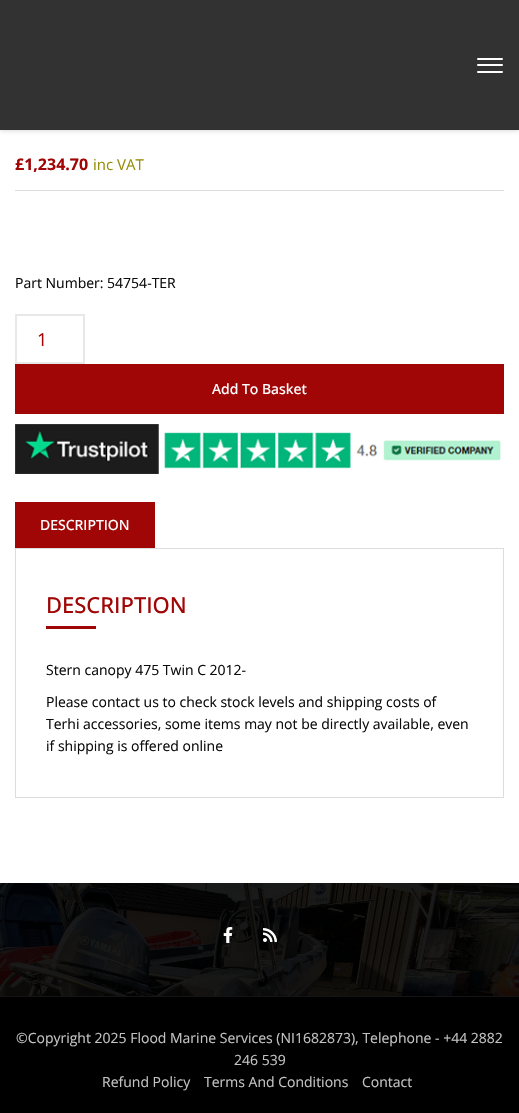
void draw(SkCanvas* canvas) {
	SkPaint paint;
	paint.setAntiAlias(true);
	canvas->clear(0xffffffff);
	paint.setColor(0x33000000);
	paint.setMaskFilter(SkMaskFilter::MakeBlur(kNormal_SkBlurStyle, 2.5));
	canvas->drawRect(SkRect::MakeXYWH(0, 0, 519, 130), paint);
	paint.setMaskFilter(nullptr);
	paint.setColor(0xff323232);
	canvas->drawRect(SkRect::MakeXYWH(0, 0, 519, 130), paint);
	paint.setColor(0xffffffff);
	canvas->drawRoundRect(SkRect::MakeXYWH(477, 58, 26, 2), 1, 1, paint);
	canvas->drawRoundRect(SkRect::MakeXYWH(477, 64, 26, 2), 1, 1, paint);
	canvas->drawRoundRect(SkRect::MakeXYWH(477, 71, 26, 2), 1, 1, paint);
	paint.setColor(0xffdddddd);
	canvas->drawRect(SkRect::MakeXYWH(15, 190, 489, 1), paint);
	SkFont f1(fontMgr->matchFamilyStyle("Open Sans", SkFontStyle::Bold()), 16);
	f1.setSubpixel(true);
	paint.setColor(0xffa10606);
	canvas->drawString("£1,234.70", 15, 170, f1, paint);
	SkFont f2(fontMgr->matchFamilyStyle("Open Sans", SkFontStyle::Normal()), 15);
	f2.setSubpixel(true);
	paint.setColor(0xff958e09);
	canvas->drawString("inc VAT", 93, 170, f2, paint);
	SkFont f3(fontMgr->matchFamilyStyle("Open Sans", SkFontStyle::Normal()), 14);
	f3.setSubpixel(true);
	paint.setColor(0xff0c0c0c);
	canvas->drawString("Part Number: 54754-TER", 15, 288, f3, paint);
	paint.setStroke(true);
	paint.setStrokeWidth(2);
	paint.setColor(0xffe8e8e8);
	canvas->drawRect(SkRect::MakeXYWH(16, 315, 68, 48), paint);
	SkFont f4(fontMgr->matchFamilyStyle("Open Sans", SkFontStyle::Normal()), 18);
	f4.setSubpixel(true);
	paint.setStroke(false);
	paint.setColor(0xffa10606);
	canvas->drawString("1", 37, 346, f4, paint);
	canvas->drawRect(SkRect::MakeXYWH(15, 364, 489, 50), paint);
	SkFont f5(fontMgr->matchFamilyStyle("Open Sans", SkFontStyle(500, SkFontStyle::kNormal_Width, SkFontStyle::kUpright_Slant)), 14);
	f5.setSubpixel(true);
	paint.setColor(0xffffffff);
	canvas->drawString("Add To Basket", 212, 394, f5, paint);
	canvas->drawImageRect(SkImages::DeferredFromEncodedData(SkData::MakeFromFileName("img1.png")), SkRect::MakeXYWH(15, 424, 486, 50), SkSamplingOptions());
	paint.setColor(0xffa10606);
	canvas->drawRect(SkRect::MakeXYWH(15, 502, 140, 46), paint);
	paint.setColor(0xffffffff);
	canvas->drawString("DESCRIPTION", 40, 530, f5, paint);
	paint.setStroke(true);
	paint.setStrokeWidth(1);
	paint.setColor(0xffdddddd);
	canvas->drawRect(SkRect::MakeXYWH(15.5, 548.5, 488, 249), paint);
	SkFont f6(fontMgr->matchFamilyStyle("Open Sans", SkFontStyle(500, SkFontStyle::kNormal_Width, SkFontStyle::kUpright_Slant)), 22);
	f6.setSubpixel(true);
	paint.setStroke(false);
	paint.setColor(0xffa10606);
	canvas->drawString("DESCRIPTION", 46, 613, f6, paint);
	canvas->drawRect(SkRect::MakeXYWH(46, 626, 50, 3), paint);
	paint.setColor(0xff0c0c0c);
	canvas->drawString("Stern canopy 475 Twin C 2012-", 46, 675, f3, paint);
	canvas->drawString("Please contact us to check stock levels and shipping costs of", 46, 707, f3, paint);
	canvas->drawString("Terhi accessories, some items may not be directly available, even", 46, 729, f3, paint);
	canvas->drawString("if shipping is offered online", 46, 751, f3, paint);
	canvas->drawImageRect(SkImages::DeferredFromEncodedData(SkData::MakeFromFileName("img2.png")), SkRect::MakeXYWH(0, 883, 519, 113), SkSamplingOptions());
	canvas->drawImageRect(SkImages::DeferredFromEncodedData(SkData::MakeFromFileName("img3.png")), SkRect::MakeXYWH(223, 927, 10, 16), SkSamplingOptions());
	canvas->drawImageRect(SkImages::DeferredFromEncodedData(SkData::MakeFromFileName("img4.png")), SkRect::MakeXYWH(263, 928, 14, 14), SkSamplingOptions());
	paint.setColor(0xff000000);
	canvas->drawRect(SkRect::MakeXYWH(0, 997, 519, 116), paint);
	paint.setColor(0xff141414);
	canvas->drawRect(SkRect::MakeXYWH(0, 996, 519, 1), paint);
	paint.setColor(0xffc4c3c3);
	canvas->drawString("©Copyright 2025 Flood Marine Services (NI1682873), Telephone - +44 2882", 16, 1043, f3, paint);
	canvas->drawString("246 539", 234, 1065, f3, paint);
	canvas->drawString("Refund Policy", 102, 1087, f3, paint);
	canvas->drawString("Terms And Conditions", 204, 1087, f3, paint);
	canvas->drawString("Contact", 362, 1087, f3, paint);
}
